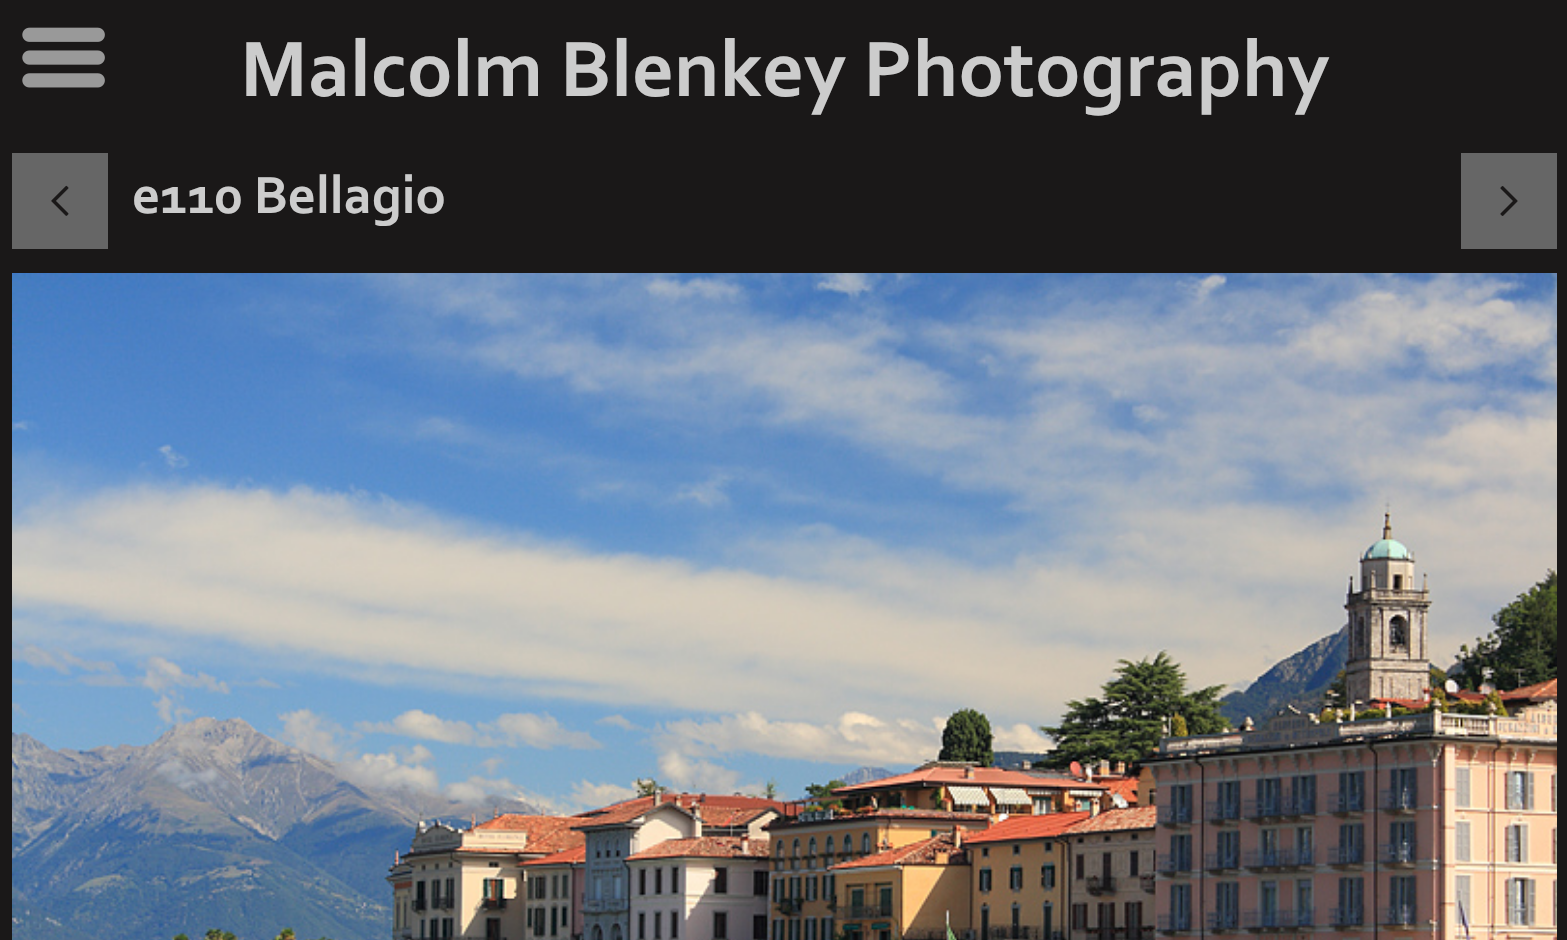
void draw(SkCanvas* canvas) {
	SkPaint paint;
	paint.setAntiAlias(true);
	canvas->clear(0xff1a1818);
	canvas->drawImageRect(SkImages::DeferredFromEncodedData(SkData::MakeFromFileName("img1.png")), SkRect::MakeXYWH(22, 27, 83, 61), SkSamplingOptions());
	SkFont f1(fontMgr->matchFamilyStyle("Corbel", SkFontStyle::Bold()), 82.1);
	f1.setSubpixel(true);
	paint.setColor(0xffcccccc);
	canvas->drawString("Malcolm Blenkey Photography", 240, 96, f1, paint);
	paint.setColor(0xff666666);
	canvas->drawRect(SkRect::MakeXYWH(12, 153, 96, 96), paint);
	canvas->drawImageRect(SkImages::DeferredFromEncodedData(SkData::MakeFromFileName("img2.png")), SkRect::MakeXYWH(51, 185, 18, 31), SkSamplingOptions());
	canvas->drawRect(SkRect::MakeXYWH(1461, 153, 96, 96), paint);
	canvas->drawImageRect(SkImages::DeferredFromEncodedData(SkData::MakeFromFileName("img3.png")), SkRect::MakeXYWH(1500, 186, 18, 30), SkSamplingOptions());
	SkFont f2(fontMgr->matchFamilyStyle("Corbel", SkFontStyle::Bold()), 54.75);
	f2.setSubpixel(true);
	paint.setColor(0xffcccccc);
	canvas->drawString("e110 Bellagio", 132, 213, f2, paint);
	canvas->drawImageRect(SkImages::DeferredFromEncodedData(SkData::MakeFromFileName("img4.png")), SkRect::MakeXYWH(12, 273, 1545, 667), SkSamplingOptions());
}
